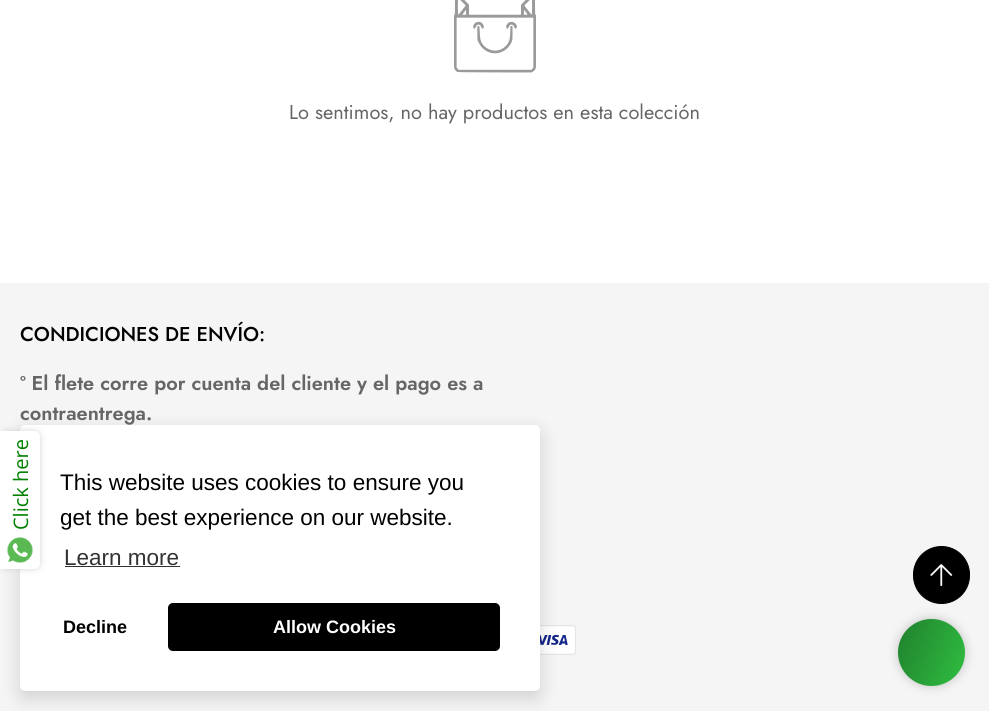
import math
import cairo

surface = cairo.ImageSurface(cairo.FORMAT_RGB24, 989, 711)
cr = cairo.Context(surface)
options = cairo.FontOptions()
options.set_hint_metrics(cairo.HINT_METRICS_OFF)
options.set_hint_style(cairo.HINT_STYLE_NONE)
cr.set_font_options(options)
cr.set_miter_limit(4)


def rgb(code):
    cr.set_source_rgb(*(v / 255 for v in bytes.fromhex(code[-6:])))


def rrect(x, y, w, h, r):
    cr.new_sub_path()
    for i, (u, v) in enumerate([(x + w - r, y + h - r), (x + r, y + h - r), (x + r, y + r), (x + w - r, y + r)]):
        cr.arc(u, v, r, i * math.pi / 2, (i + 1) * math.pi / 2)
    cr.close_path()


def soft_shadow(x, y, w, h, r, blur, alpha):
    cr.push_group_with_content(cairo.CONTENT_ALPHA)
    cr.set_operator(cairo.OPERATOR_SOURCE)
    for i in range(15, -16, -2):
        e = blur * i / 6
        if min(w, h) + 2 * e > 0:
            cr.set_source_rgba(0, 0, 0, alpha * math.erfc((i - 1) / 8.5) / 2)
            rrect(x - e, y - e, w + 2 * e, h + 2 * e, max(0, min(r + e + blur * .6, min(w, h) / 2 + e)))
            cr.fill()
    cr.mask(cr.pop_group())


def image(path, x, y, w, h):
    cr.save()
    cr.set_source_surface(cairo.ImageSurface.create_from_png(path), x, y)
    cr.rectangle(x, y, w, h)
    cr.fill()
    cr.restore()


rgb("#ffffff")
cr.paint()
image("img/1.png", 454, 0, 82, 73)
rgb("#f5f5f5")
cr.rectangle(0, 283, 989, 428)
cr.fill()
image("img/2.png", 540, 625, 36, 30)
rgb("#000000")
soft_shadow(20, 431, 520, 267, 5, 9.5, 0.15)
rgb("#ffffff")
rrect(20, 425, 520, 266, 5)
cr.fill()
rgb("#d3d3d3")
soft_shadow(0, 431, 40, 138, 6, 3, 1)
rgb("#ffffff")
cr.new_path()
cr.move_to(0, 431)
cr.line_to(34, 431)
cr.curve_to(37.5, 431, 40, 433.5, 40, 437)
cr.line_to(40, 563)
cr.curve_to(40, 566.5, 37.5, 569, 34, 569)
cr.line_to(0, 569)
cr.close_path()
cr.fill()
image("img/3.png", 7, 537, 26, 26)
rgb("#333333")
cr.rectangle(65, 566, 115, 1)
cr.fill()
rgb("#000000")
rrect(168, 603, 332, 48, 5)
cr.fill()
rrect(913.5, 546.5, 56, 57, 28)
cr.fill_preserve()
cr.set_line_width(1)
cr.stroke()
image("img/4.png", 930, 564, 23, 22)
rgb("#c2c2c2")
soft_shadow(898, 619, 67, 67, 33.5, 5, 1)
gradient = cairo.LinearGradient(891, 636, 972, 669)
gradient.add_color_stop_rgba(0, 0.125, 0.502, 0.173, 1)
gradient.add_color_stop_rgba(0, 0.125, 0.502, 0.173, 1)
gradient.add_color_stop_rgba(1, 0.188, 0.749, 0.259, 1)
cr.set_source(gradient)
cr.arc(931.5, 652.5, 33.5, 0, 2 * math.pi)
cr.fill()
cr.select_font_face("Jost")
cr.set_font_size(20)
rgb("#666666")
cr.move_to(289, 119)
cr.show_text("Lo sentimos, no hay productos en esta colección")
cr.select_font_face("Jost Medium")
rgb("#000000")
cr.move_to(20, 341)
cr.show_text("CONDICIONES DE ENVÍO:")
cr.select_font_face("Jost SemiBold")
rgb("#666666")
cr.move_to(20, 390)
cr.show_text("º El flete corre por cuenta del cliente y el pago es a")
cr.move_to(20, 420)
cr.show_text("contraentrega.")
cr.select_font_face("Open Sans")
rgb("#008000")
cr.save()
cr.translate(28, 530)
cr.rotate(-90 * math.pi / 180)
cr.move_to(0, 0)
cr.show_text("Click here")
cr.restore()
cr.select_font_face("Liberation Sans")
cr.set_font_size(22.5)
rgb("#000000")
cr.move_to(60, 490)
cr.show_text("This website uses cookies to ensure you")
cr.move_to(60, 525)
cr.show_text("get the best experience on our website.")
rgb("#333333")
cr.move_to(64, 565)
cr.show_text("Learn more")
cr.select_font_face("Liberation Sans", cairo.FONT_SLANT_NORMAL, cairo.FONT_WEIGHT_BOLD)
cr.set_font_size(18)
rgb("#000000")
cr.move_to(63, 633)
cr.show_text("Decline")
rgb("#ffffff")
cr.move_to(273, 633)
cr.show_text("Allow Cookies")
surface.write_to_png("page.png")
